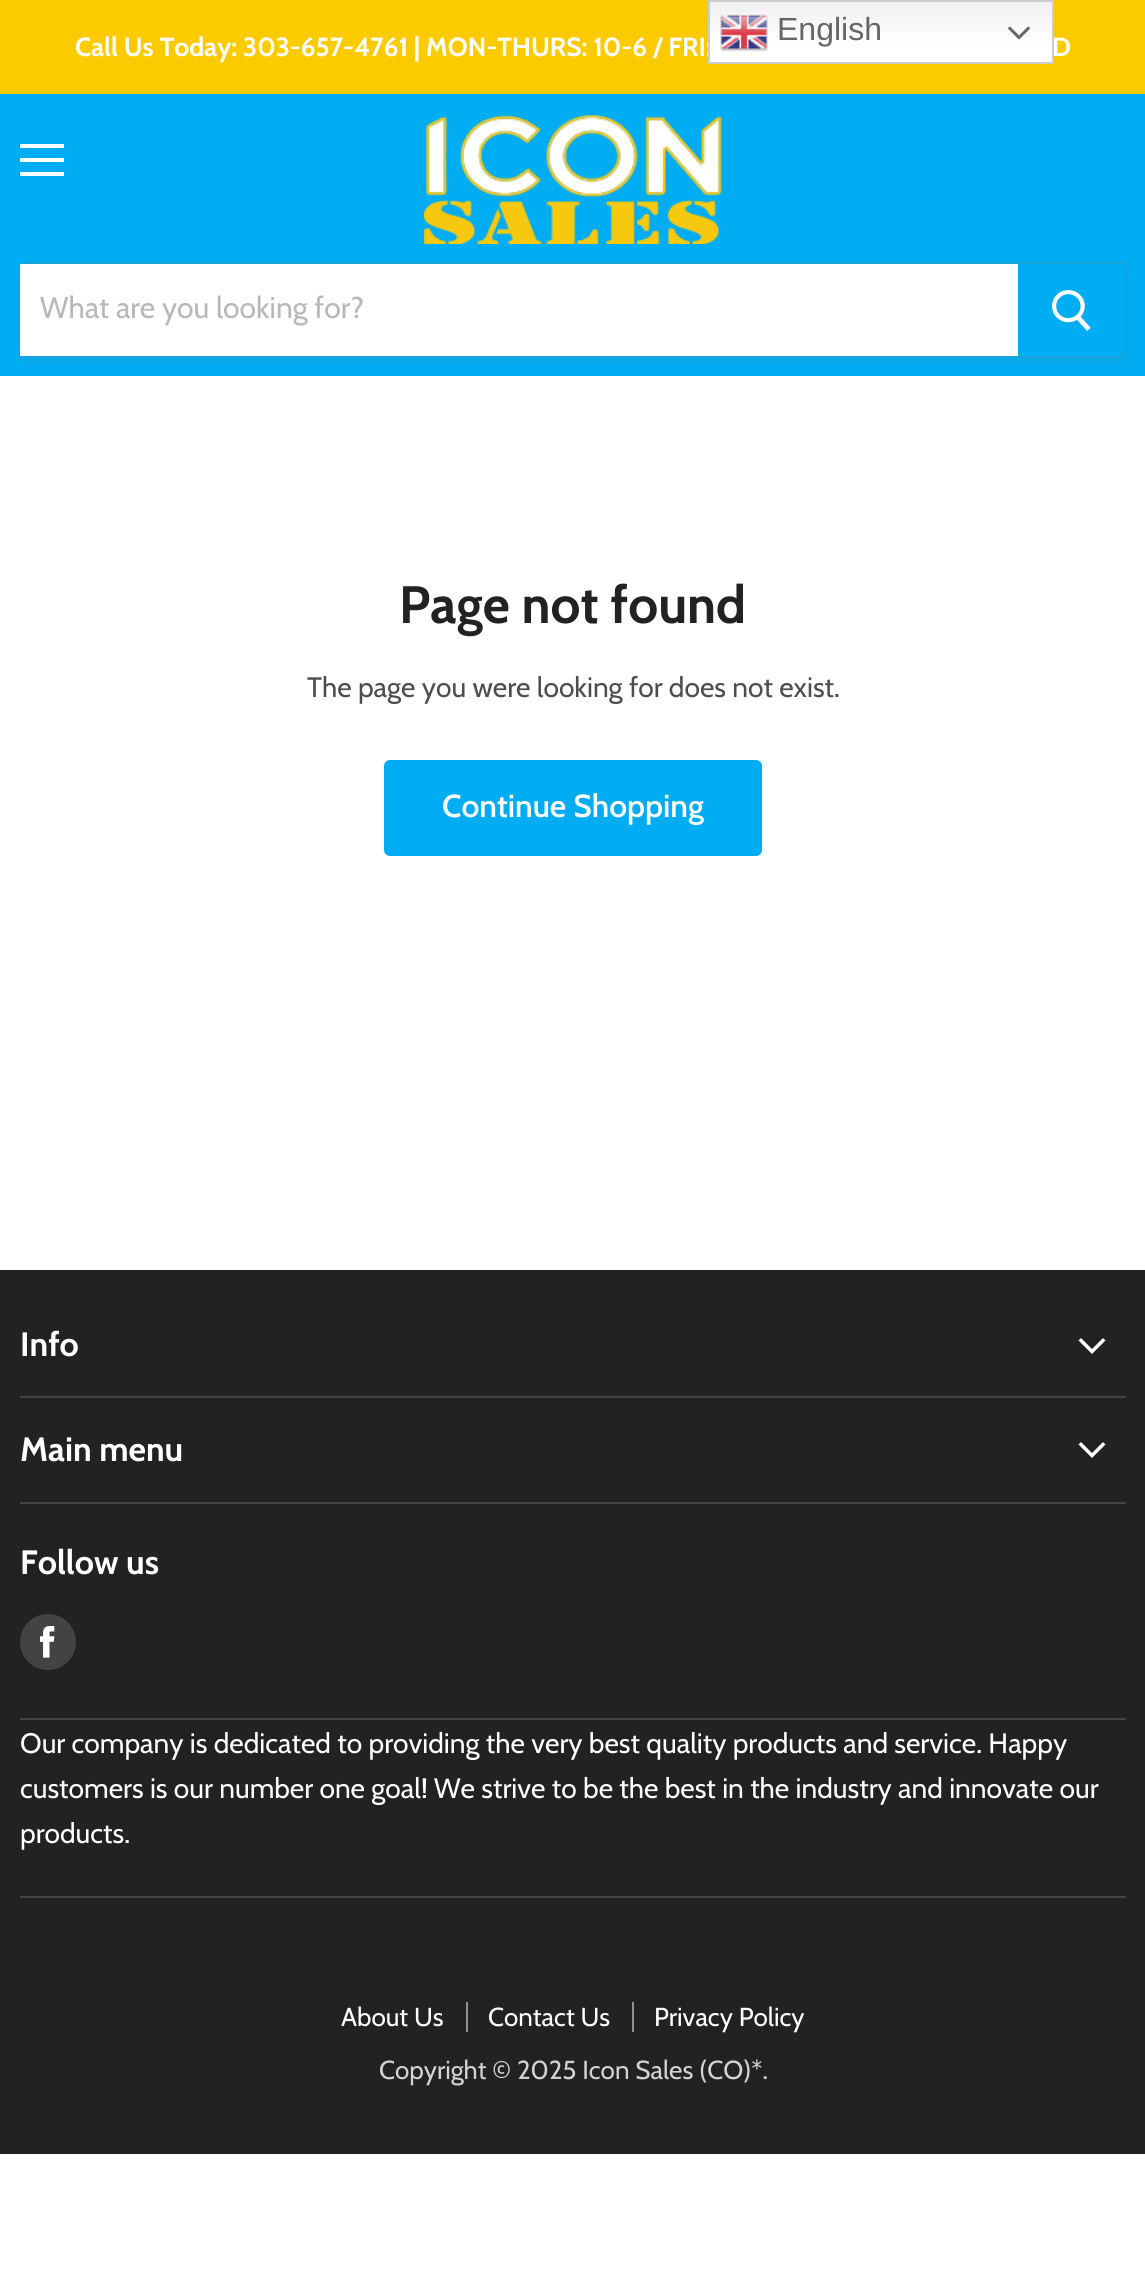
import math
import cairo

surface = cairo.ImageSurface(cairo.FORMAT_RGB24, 1145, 2272)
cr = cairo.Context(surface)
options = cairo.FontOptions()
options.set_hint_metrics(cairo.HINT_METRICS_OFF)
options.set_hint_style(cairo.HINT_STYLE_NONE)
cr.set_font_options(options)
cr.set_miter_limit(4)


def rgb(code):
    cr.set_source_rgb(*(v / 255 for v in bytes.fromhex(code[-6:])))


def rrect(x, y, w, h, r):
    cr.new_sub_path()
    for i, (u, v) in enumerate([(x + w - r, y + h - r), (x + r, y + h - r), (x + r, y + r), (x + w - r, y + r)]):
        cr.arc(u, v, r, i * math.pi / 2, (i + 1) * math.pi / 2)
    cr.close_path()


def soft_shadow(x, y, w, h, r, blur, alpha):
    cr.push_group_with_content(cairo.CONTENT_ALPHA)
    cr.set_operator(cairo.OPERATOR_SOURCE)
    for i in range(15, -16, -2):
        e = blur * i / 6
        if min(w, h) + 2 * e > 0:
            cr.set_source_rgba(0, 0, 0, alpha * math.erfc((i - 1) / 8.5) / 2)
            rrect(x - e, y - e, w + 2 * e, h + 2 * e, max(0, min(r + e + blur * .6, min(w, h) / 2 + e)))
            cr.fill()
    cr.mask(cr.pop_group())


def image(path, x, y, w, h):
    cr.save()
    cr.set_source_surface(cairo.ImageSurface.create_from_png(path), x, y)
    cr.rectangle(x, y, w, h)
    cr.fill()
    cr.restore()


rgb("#ffffff")
cr.paint()
rgb("#fbcb00")
cr.rectangle(0, 0, 1145, 94)
cr.fill()
gradient = cairo.LinearGradient(881, 0, 881, 64)
gradient.add_color_stop_rgba(0, 0.937, 0.937, 0.937, 1)
gradient.add_color_stop_rgba(0.7, 1, 1, 1, 1)
cr.set_source(gradient)
cr.rectangle(710, 2, 342, 60)
cr.fill()
for x, y, w, h, color in [
    (0, 94, 1145, 282, "#00acf2"),
    (20, 144, 44, 4, "#ffffff"),
    (20, 158, 44, 4, "#ffffff"),
    (20, 172, 44, 4, "#ffffff"),
]:
    rgb(color)
    cr.rectangle(x, y, w, h)
    cr.fill()
image("img/3.png", 424, 114, 298, 130)
cr.save()
cr.set_fill_rule(cairo.FILL_RULE_EVEN_ODD)
cr.new_path()
cr.move_to(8, 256)
cr.line_to(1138, 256)
cr.line_to(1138, 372)
cr.line_to(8, 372)
cr.close_path()
cr.move_to(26, 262)
cr.line_to(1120, 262)
cr.curve_to(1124.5, 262, 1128, 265.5, 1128, 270)
cr.line_to(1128, 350)
cr.curve_to(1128, 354.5, 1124.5, 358, 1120, 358)
cr.line_to(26, 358)
cr.curve_to(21.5, 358, 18, 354.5, 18, 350)
cr.line_to(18, 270)
cr.curve_to(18, 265.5, 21.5, 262, 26, 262)
cr.close_path()
cr.clip()
rgb("#808080")
soft_shadow(18, 266, 1110, 96, 8, 3, 0.11)
cr.restore()
rrect(19, 263, 1108, 94, 7)
cr.set_source_rgba(0.502, 0.502, 0.502, 0.2)
cr.stroke()
rgb("#ffffff")
cr.rectangle(20, 264, 998, 92)
cr.fill()
rgb("#00acf2")
cr.new_path()
cr.move_to(1019, 265)
cr.line_to(1120, 265)
cr.curve_to(1123, 265, 1125, 267, 1125, 270)
cr.line_to(1125, 350)
cr.curve_to(1125, 353, 1123, 355, 1120, 355)
cr.line_to(1019, 355)
cr.close_path()
cr.fill_preserve()
cr.stroke()
image("img/4.png", 1052, 290, 39, 41)
rrect(385, 761, 376, 94, 5)
cr.fill_preserve()
cr.stroke()
rgb("#222222")
cr.rectangle(0, 1270, 1145, 884)
cr.fill()
rgb("#434343")
cr.rectangle(20, 1396, 1106, 2)
cr.fill()
cr.new_path()
cr.move_to(1092, 1351.5)
cr.line_to(1103, 1340.5)
cr.move_to(1092, 1351.5)
cr.line_to(1081, 1340.5)
rgb("#ffffff")
cr.set_line_width(3.5)
cr.set_line_cap(cairo.LINE_CAP_SQUARE)
cr.stroke()
rgb("#434343")
cr.rectangle(20, 1502, 1106, 2)
cr.fill()
cr.new_path()
cr.move_to(1092, 1455.5)
cr.line_to(1103, 1444.5)
cr.move_to(1092, 1455.5)
cr.line_to(1081, 1444.5)
rgb("#ffffff")
cr.stroke()
rgb("#434343")
cr.rectangle(20, 1718, 1106, 2)
cr.fill()
cr.arc(48, 1642, 28, 0, 2 * math.pi)
cr.fill()
image("img/5.png", 40, 1626, 15, 32)
for x, y, w, h, color in [
    (20, 1896, 1106, 2, "#434343"),
    (466, 2002, 2, 30, "#919191"),
    (632, 2002, 2, 30, "#919191"),
]:
    rgb(color)
    cr.rectangle(x, y, w, h)
    cr.fill()
cr.select_font_face("Cabin", cairo.FONT_SLANT_NORMAL, cairo.FONT_WEIGHT_BOLD)
cr.set_font_size(26.25)
rgb("#ffffff")
cr.move_to(75, 56)
cr.show_text("Call Us Today: 303-657-4761 | MON-THURS: 10-6 / FRI:")
cr.rectangle(709, 1, 344, 62)
rgb("#cccccc")
cr.set_line_width(2)
cr.set_line_cap(cairo.LINE_CAP_BUTT)
cr.stroke()
image("img/2.png", 1008, 26, 22, 14)
image("img/1.png", 720, 14, 48, 38)
cr.select_font_face("Liberation Sans")
cr.set_font_size(32)
rgb("#666666")
cr.move_to(777, 40)
cr.show_text("English")
cr.select_font_face("Cabin", cairo.FONT_SLANT_NORMAL, cairo.FONT_WEIGHT_BOLD)
cr.set_font_size(26.25)
rgb("#ffffff")
cr.move_to(1052, 56)
cr.show_text("D")
cr.select_font_face("Cabin")
cr.set_font_size(30)
rgb("#b8b8b8")
cr.move_to(40, 318)
cr.show_text("What are you looking for?")
cr.select_font_face("Cabin", cairo.FONT_SLANT_NORMAL, cairo.FONT_WEIGHT_BOLD)
cr.set_font_size(52.5)
rgb("#222222")
cr.move_to(399, 623)
cr.show_text("Page not found")
cr.select_font_face("Cabin")
cr.set_font_size(28.1)
rgb("#4d4d4d")
cr.move_to(307, 697)
cr.show_text("The page you were looking for does not exist.")
cr.select_font_face("Cabin SemiBold")
cr.set_font_size(31.75)
rgb("#ffffff")
cr.move_to(442, 817)
cr.show_text("Continue Shopping")
cr.select_font_face("Cabin", cairo.FONT_SLANT_NORMAL, cairo.FONT_WEIGHT_BOLD)
cr.set_font_size(33.75)
for x, y, s in [
    (20, 1356, "Info"),
    (20, 1461, "Main menu"),
    (20, 1574, "Follow us"),
]:
    cr.move_to(x, y)
    cr.show_text(s)
cr.select_font_face("Cabin")
cr.set_font_size(28.1)
for x, y, s in [
    (20, 1753, "Our company is dedicated to providing the very best quality products and service. Happy"),
    (20, 1798, "customers is our number one goal! We strive to be the best in the industry and innovate our"),
    (20, 1843, "products."),
]:
    cr.move_to(x, y)
    cr.show_text(s)
cr.set_font_size(26)
for x, y, s in [
    (341, 2026, "About Us"),
    (488, 2026, "Contact Us"),
    (654, 2026, "Privacy Policy"),
]:
    cr.move_to(x, y)
    cr.show_text(s)
rgb("#d3d3d3")
cr.move_to(379, 2079)
cr.show_text("Copyright © 2025 Icon Sales (CO)*.")
surface.write_to_png("page.png")
